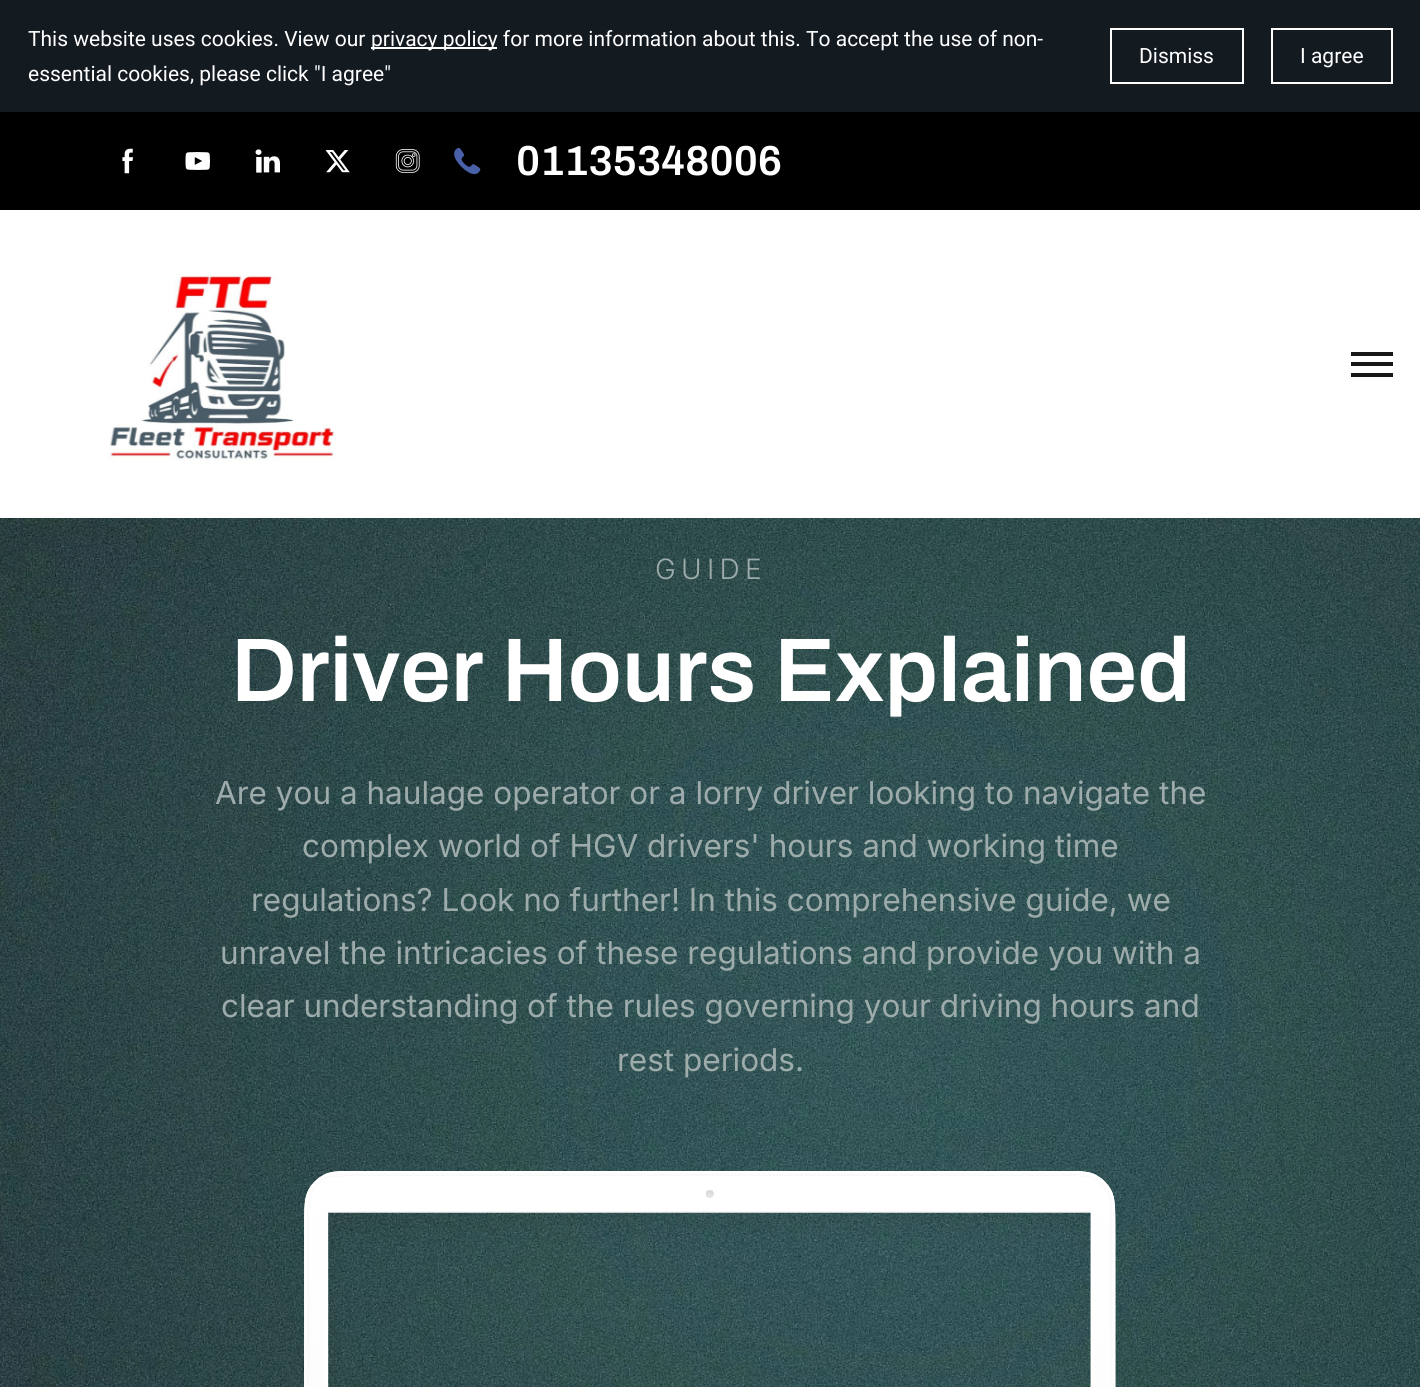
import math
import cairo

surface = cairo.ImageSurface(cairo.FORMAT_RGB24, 1420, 1387)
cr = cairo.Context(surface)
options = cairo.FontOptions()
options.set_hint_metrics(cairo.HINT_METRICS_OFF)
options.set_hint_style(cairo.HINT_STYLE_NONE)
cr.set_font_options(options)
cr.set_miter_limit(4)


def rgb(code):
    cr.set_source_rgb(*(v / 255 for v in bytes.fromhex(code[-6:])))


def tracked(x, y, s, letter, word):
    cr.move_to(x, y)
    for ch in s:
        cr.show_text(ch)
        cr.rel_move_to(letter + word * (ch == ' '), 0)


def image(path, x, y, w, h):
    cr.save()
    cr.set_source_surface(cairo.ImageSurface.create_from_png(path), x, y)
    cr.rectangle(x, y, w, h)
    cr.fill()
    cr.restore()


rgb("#ffffff")
cr.paint()
rgb("#131a20")
cr.rectangle(0, 0, 1420, 112)
cr.fill()
rgb("#ffffff")
cr.rectangle(371, 47, 126, 2)
cr.fill()
cr.rectangle(1111, 29, 132, 54)
cr.stroke()
cr.rectangle(1272, 29, 120, 54)
cr.stroke()
rgb("#000000")
cr.rectangle(0, 112, 1420, 98)
cr.fill()
image("img/1.png", 122, 148, 12, 26)
image("img/2.png", 185, 152, 25, 18)
image("img/3.png", 255, 149, 25, 24)
image("img/4.png", 325, 150, 25, 23)
image("img/5.png", 395, 149, 25, 24)
image("img/6.png", 454, 147, 27, 28)
image("img/7.png", 107, 274, 229, 187)
for x, y, w, h, color in [
    (1351, 362, 42, 4, "#151719"),
    (1351, 352, 42, 4, "#151719"),
    (1351, 373, 42, 4, "#151719"),
]:
    rgb(color)
    cr.rectangle(x, y, w, h)
    cr.fill()
image("img/8.png", 0, 518, 1420, 869)
image("img/9.png", 304, 1171, 812, 216)
cr.select_font_face("Roboto")
cr.set_font_size(21)
rgb("#ffffff")
for x, y, s in [
    (28, 46, "This website uses cookies. View our"),
    (371, 46, "privacy policy for more information about this. To accept the use of non-"),
    (28, 81, "essential cookies, please click \"I agree\""),
    (1139, 63, "Dismiss"),
    (1300, 63, "I agree"),
]:
    cr.move_to(x, y)
    cr.show_text(s)
cr.select_font_face("Archivo SemiBold")
cr.set_font_size(42)
cr.move_to(516, 175)
cr.show_text("01135348006")
cr.select_font_face("Inter Light")
cr.set_font_size(28)
rgb("#9dabab")
tracked(655, 579, "GUIDE", 5.25, 0)
cr.select_font_face("Archivo SemiBold")
cr.set_font_size(90.4)
rgb("#ffffff")
cr.move_to(231, 701)
cr.show_text("Driver Hours Explained")
cr.select_font_face("Inter")
cr.set_font_size(31.5)
rgb("#9dabab")
for x, y, s in [
    (215, 804, "Are you a haulage operator or a lorry driver looking to navigate the"),
    (302, 857, "complex world of HGV drivers' hours and working time"),
    (251, 911, "regulations? Look no further! In this comprehensive guide, we"),
    (220, 964, "unravel the intricacies of these regulations and provide you with a"),
    (221, 1017, "clear understanding of the rules governing your driving hours and"),
    (617, 1071, "rest periods."),
]:
    cr.move_to(x, y)
    cr.show_text(s)
surface.write_to_png("page.png")
